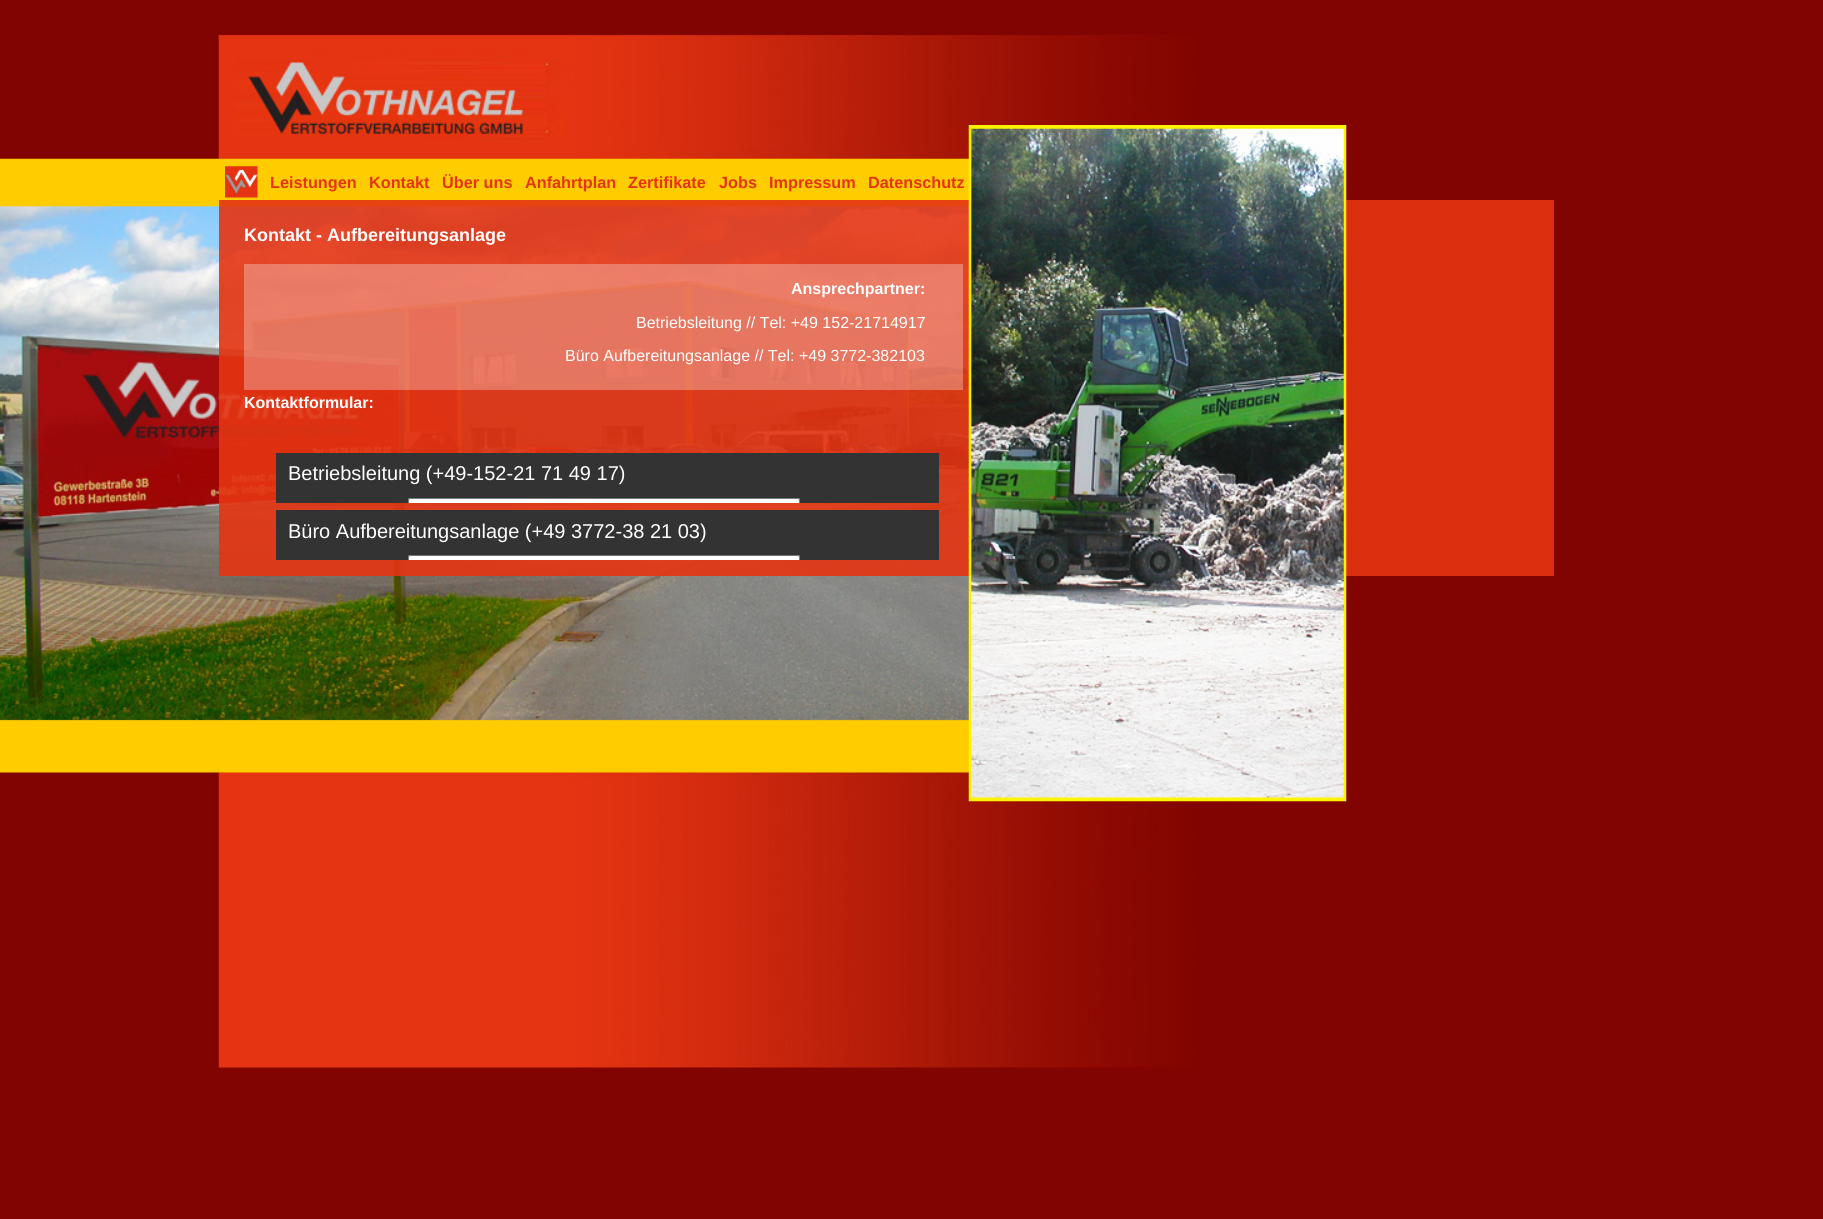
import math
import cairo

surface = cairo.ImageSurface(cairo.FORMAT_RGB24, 1823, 1219)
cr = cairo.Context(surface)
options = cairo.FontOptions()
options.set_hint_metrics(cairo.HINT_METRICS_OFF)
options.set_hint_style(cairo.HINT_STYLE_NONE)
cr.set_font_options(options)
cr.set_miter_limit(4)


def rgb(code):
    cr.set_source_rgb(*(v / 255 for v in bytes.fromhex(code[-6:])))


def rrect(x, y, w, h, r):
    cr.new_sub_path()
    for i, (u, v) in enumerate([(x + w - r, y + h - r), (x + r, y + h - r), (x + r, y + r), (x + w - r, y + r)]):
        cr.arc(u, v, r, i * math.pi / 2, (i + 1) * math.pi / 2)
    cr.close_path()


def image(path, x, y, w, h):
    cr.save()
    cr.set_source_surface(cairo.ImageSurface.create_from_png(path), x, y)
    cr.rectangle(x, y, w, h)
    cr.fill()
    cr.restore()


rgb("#810400")
cr.paint()
image("img/1.png", 0, 30, 1335, 1038)
image("img/2.png", 225, 166, 33, 32)
cr.set_source_rgba(0.898, 0.204, 0.071, 0.9)
cr.rectangle(219, 200, 1335, 376)
cr.fill()
cr.set_source_rgba(1, 1, 1, 0.3)
cr.rectangle(244, 264, 719, 126)
cr.fill()
rgb("#333333")
cr.rectangle(276, 453, 663, 50)
cr.fill()
rgb("#ffffff")
cr.new_path()
cr.move_to(410.5, 498)
cr.line_to(797.5, 498)
cr.curve_to(799, 498, 800, 499, 800, 500.5)
cr.line_to(800, 503)
cr.line_to(408, 503)
cr.line_to(408, 500.5)
cr.curve_to(408, 499, 409, 498, 410.5, 498)
cr.close_path()
cr.fill()
cr.save()
cr.rectangle(276, 453, 663, 50)
cr.clip()
rrect(408.5, 498.5, 391, 29, 2)
rgb("#767676")
cr.set_line_width(1)
cr.stroke()
cr.restore()
rgb("#333333")
cr.rectangle(276, 510, 663, 50)
cr.fill()
rgb("#ffffff")
cr.new_path()
cr.move_to(410.5, 555)
cr.line_to(797.5, 555)
cr.curve_to(799, 555, 800, 556, 800, 557.5)
cr.line_to(800, 560)
cr.line_to(408, 560)
cr.line_to(408, 557.5)
cr.curve_to(408, 556, 409, 555, 410.5, 555)
cr.close_path()
cr.fill()
cr.save()
cr.rectangle(276, 510, 663, 50)
cr.clip()
rrect(408.5, 555.5, 391, 29, 2)
rgb("#767676")
cr.set_line_width(1)
cr.stroke()
cr.restore()
image("img/3.png", 968, 125, 379, 677)
cr.select_font_face("Liberation Sans", cairo.FONT_SLANT_NORMAL, cairo.FONT_WEIGHT_BOLD)
cr.set_font_size(16.25)
rgb("#e53412")
for x, y, s in [
    (270, 188, "Leistungen"),
    (369, 188, "Kontakt"),
    (442, 188, "Über uns"),
    (525, 188, "Anfahrtplan"),
    (628, 188, "Zertifikate"),
    (719, 188, "Jobs"),
    (769, 188, "Impressum"),
    (868, 188, "Datenschutz"),
]:
    cr.move_to(x, y)
    cr.show_text(s)
cr.set_font_size(18)
rgb("#ffffff")
cr.move_to(244, 241)
cr.show_text("Kontakt - Aufbereitungsanlage")
cr.set_font_size(16)
cr.move_to(791, 294)
cr.show_text("Ansprechpartner:")
cr.select_font_face("Liberation Sans")
cr.move_to(636, 328)
cr.show_text("Betriebsleitung // Tel: +49 152-21714917")
cr.move_to(565, 361)
cr.show_text("Büro Aufbereitungsanlage // Tel: +49 3772-382103")
cr.select_font_face("Liberation Sans", cairo.FONT_SLANT_NORMAL, cairo.FONT_WEIGHT_BOLD)
cr.move_to(244, 408)
cr.show_text("Kontaktformular:")
cr.select_font_face("Liberation Sans")
cr.set_font_size(20)
cr.move_to(288, 480)
cr.show_text("Betriebsleitung (+49-152-21 71 49 17)")
cr.move_to(288, 538)
cr.show_text("Büro Aufbereitungsanlage (+49 3772-38 21 03)")
surface.write_to_png("page.png")
